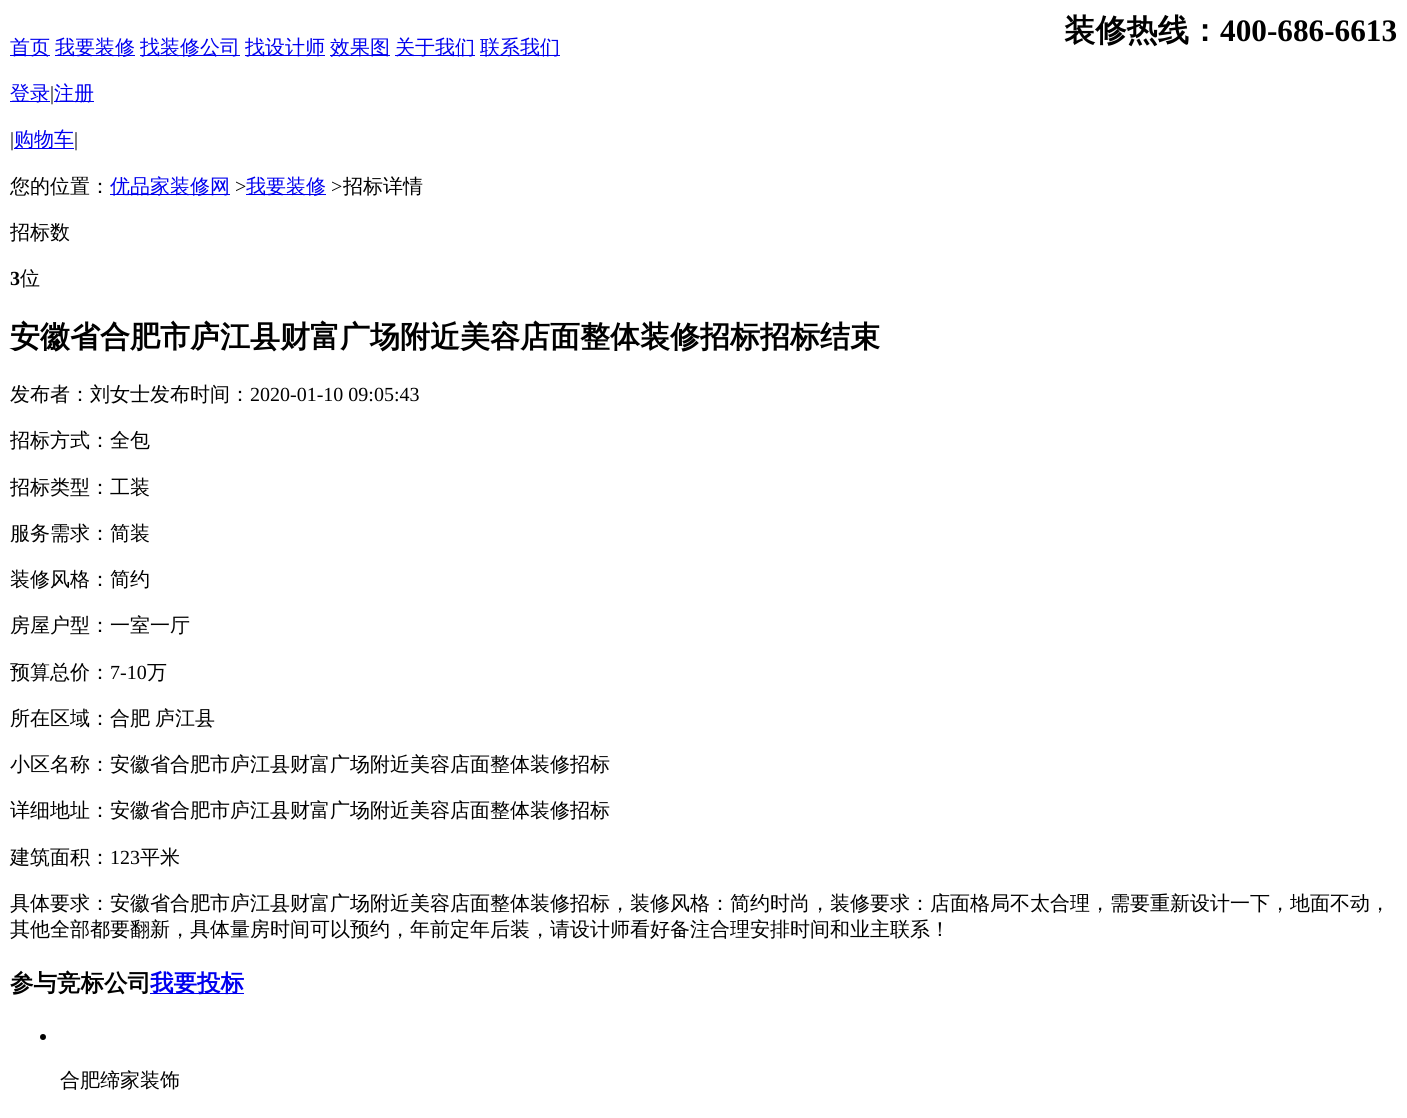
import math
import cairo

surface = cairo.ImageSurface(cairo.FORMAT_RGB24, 1407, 1118)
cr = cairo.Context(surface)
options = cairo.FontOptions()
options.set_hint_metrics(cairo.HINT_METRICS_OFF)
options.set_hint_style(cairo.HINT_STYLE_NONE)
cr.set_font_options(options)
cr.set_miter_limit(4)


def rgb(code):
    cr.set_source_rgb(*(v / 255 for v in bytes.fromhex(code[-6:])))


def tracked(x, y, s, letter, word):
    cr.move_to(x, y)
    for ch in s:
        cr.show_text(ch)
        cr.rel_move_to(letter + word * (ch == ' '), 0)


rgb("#ffffff")
cr.paint()
for x, y, w, h, color in [
    (10, 55, 40, 1, "#0000ee"),
    (55, 55, 80, 1, "#0000ee"),
    (140, 55, 100, 1, "#0000ee"),
    (245, 55, 80, 1, "#0000ee"),
    (330, 55, 60, 1, "#0000ee"),
    (395, 55, 80, 1, "#0000ee"),
    (480, 55, 80, 1, "#0000ee"),
    (10, 101, 40, 1, "#0000ee"),
    (54, 101, 40, 1, "#0000ee"),
    (14, 148, 60, 1, "#0000ee"),
    (110, 194, 120, 1, "#0000ee"),
    (246, 194, 80, 1, "#0000ee"),
    (150, 993, 94, 1, "#0000ee"),
]:
    rgb(color)
    cr.rectangle(x, y, w, h)
    cr.fill()
rgb("#000000")
cr.arc(43, 1037, 3, 0, 2 * math.pi)
cr.fill()
cr.select_font_face("WenQuanYi Zen Hei Medium")
cr.set_font_size(20)
rgb("#0000ee")
for x, y, s in [
    (10, 54, "首页"),
    (55, 54, "我要装修"),
    (140, 54, "找装修公司"),
    (245, 54, "找设计师"),
    (330, 54, "效果图"),
    (395, 54, "关于我们"),
    (480, 54, "联系我们"),
]:
    cr.move_to(x, y)
    cr.show_text(s)
cr.select_font_face("WenQuanYi Zen Hei", cairo.FONT_SLANT_NORMAL, cairo.FONT_WEIGHT_BOLD)
cr.set_font_size(31.25)
rgb("#000000")
cr.move_to(1064, 41)
cr.show_text("装修热线：")
cr.select_font_face("Liberation Serif", cairo.FONT_SLANT_NORMAL, cairo.FONT_WEIGHT_BOLD)
cr.move_to(1220, 41)
cr.show_text("400-686-6613")
cr.select_font_face("WenQuanYi Zen Hei Medium")
cr.set_font_size(20)
rgb("#0000ee")
cr.move_to(10, 100)
cr.show_text("登录")
cr.select_font_face("Liberation Serif")
rgb("#000000")
cr.move_to(50, 100)
cr.show_text("|")
cr.select_font_face("WenQuanYi Zen Hei Medium")
rgb("#0000ee")
cr.move_to(54, 100)
cr.show_text("注册")
cr.select_font_face("Liberation Serif")
rgb("#000000")
cr.move_to(10, 146)
cr.show_text("|")
cr.select_font_face("WenQuanYi Zen Hei Medium")
rgb("#0000ee")
cr.move_to(14, 146)
cr.show_text("购物车")
cr.select_font_face("Liberation Serif")
rgb("#000000")
cr.move_to(74, 146)
cr.show_text("|")
cr.select_font_face("WenQuanYi Zen Hei Medium")
cr.move_to(10, 193)
cr.show_text("您的位置：")
rgb("#0000ee")
cr.move_to(110, 193)
cr.show_text("优品家装修网")
cr.select_font_face("Liberation Serif")
rgb("#000000")
cr.move_to(235, 193)
cr.show_text(">")
cr.select_font_face("WenQuanYi Zen Hei Medium")
rgb("#0000ee")
cr.move_to(246, 193)
cr.show_text("我要装修")
cr.select_font_face("Liberation Serif")
rgb("#000000")
cr.move_to(331, 193)
cr.show_text(">")
cr.select_font_face("WenQuanYi Zen Hei Medium")
cr.move_to(343, 193)
cr.show_text("招标详情")
cr.move_to(10, 239)
cr.show_text("招标数")
cr.select_font_face("Liberation Serif", cairo.FONT_SLANT_NORMAL, cairo.FONT_WEIGHT_BOLD)
cr.move_to(10, 285)
cr.show_text("3")
cr.select_font_face("WenQuanYi Zen Hei Medium")
cr.move_to(20, 285)
cr.show_text("位")
cr.select_font_face("WenQuanYi Zen Hei", cairo.FONT_SLANT_NORMAL, cairo.FONT_WEIGHT_BOLD)
cr.set_font_size(30)
cr.move_to(10, 347)
cr.show_text("安徽省合肥市庐江县财富广场附近美容店面整体装修招标招标结束")
cr.select_font_face("WenQuanYi Zen Hei Medium")
cr.set_font_size(20)
cr.move_to(10, 401)
cr.show_text("发布者：刘女士发布时间：")
cr.select_font_face("Liberation Serif")
cr.move_to(250, 401)
cr.show_text("2020-01-10 09:05:43")
cr.select_font_face("WenQuanYi Zen Hei Medium")
for x, y, s in [
    (10, 447, "招标方式：全包"),
    (10, 494, "招标类型：工装"),
    (10, 540, "服务需求：简装"),
    (10, 586, "装修风格：简约"),
    (10, 632, "房屋户型：一室一厅"),
    (10, 679, "预算总价："),
]:
    cr.move_to(x, y)
    cr.show_text(s)
cr.select_font_face("Liberation Serif")
cr.move_to(110, 679)
cr.show_text("7-10")
cr.select_font_face("WenQuanYi Zen Hei Medium")
cr.move_to(147, 679)
cr.show_text("万")
tracked(10, 725, "所在区域：合肥 庐江县", 0, -1)
for x, y, s in [
    (10, 771, "小区名称：安徽省合肥市庐江县财富广场附近美容店面整体装修招标"),
    (10, 817, "详细地址：安徽省合肥市庐江县财富广场附近美容店面整体装修招标"),
    (10, 864, "建筑面积："),
]:
    cr.move_to(x, y)
    cr.show_text(s)
cr.select_font_face("Liberation Serif")
cr.move_to(110, 864)
cr.show_text("123")
cr.select_font_face("WenQuanYi Zen Hei Medium")
for x, y, s in [
    (140, 864, "平米"),
    (10, 910, "具体要求：安徽省合肥市庐江县财富广场附近美容店面整体装修招标，装修风格：简约时尚，装修要求：店面格局不太合理，需要重新设计一下，地面不动，"),
    (10, 936, "其他全部都要翻新，具体量房时间可以预约，年前定年后装，请设计师看好备注合理安排时间和业主联系！"),
]:
    cr.move_to(x, y)
    cr.show_text(s)
cr.select_font_face("WenQuanYi Zen Hei", cairo.FONT_SLANT_NORMAL, cairo.FONT_WEIGHT_BOLD)
cr.set_font_size(23.5)
cr.move_to(10, 991)
cr.show_text("参与竞标公司")
rgb("#0000ee")
cr.move_to(150, 991)
cr.show_text("我要投标")
cr.select_font_face("WenQuanYi Zen Hei Medium")
cr.set_font_size(20)
rgb("#000000")
cr.move_to(60, 1087)
cr.show_text("合肥缔家装饰")
surface.write_to_png("page.png")
